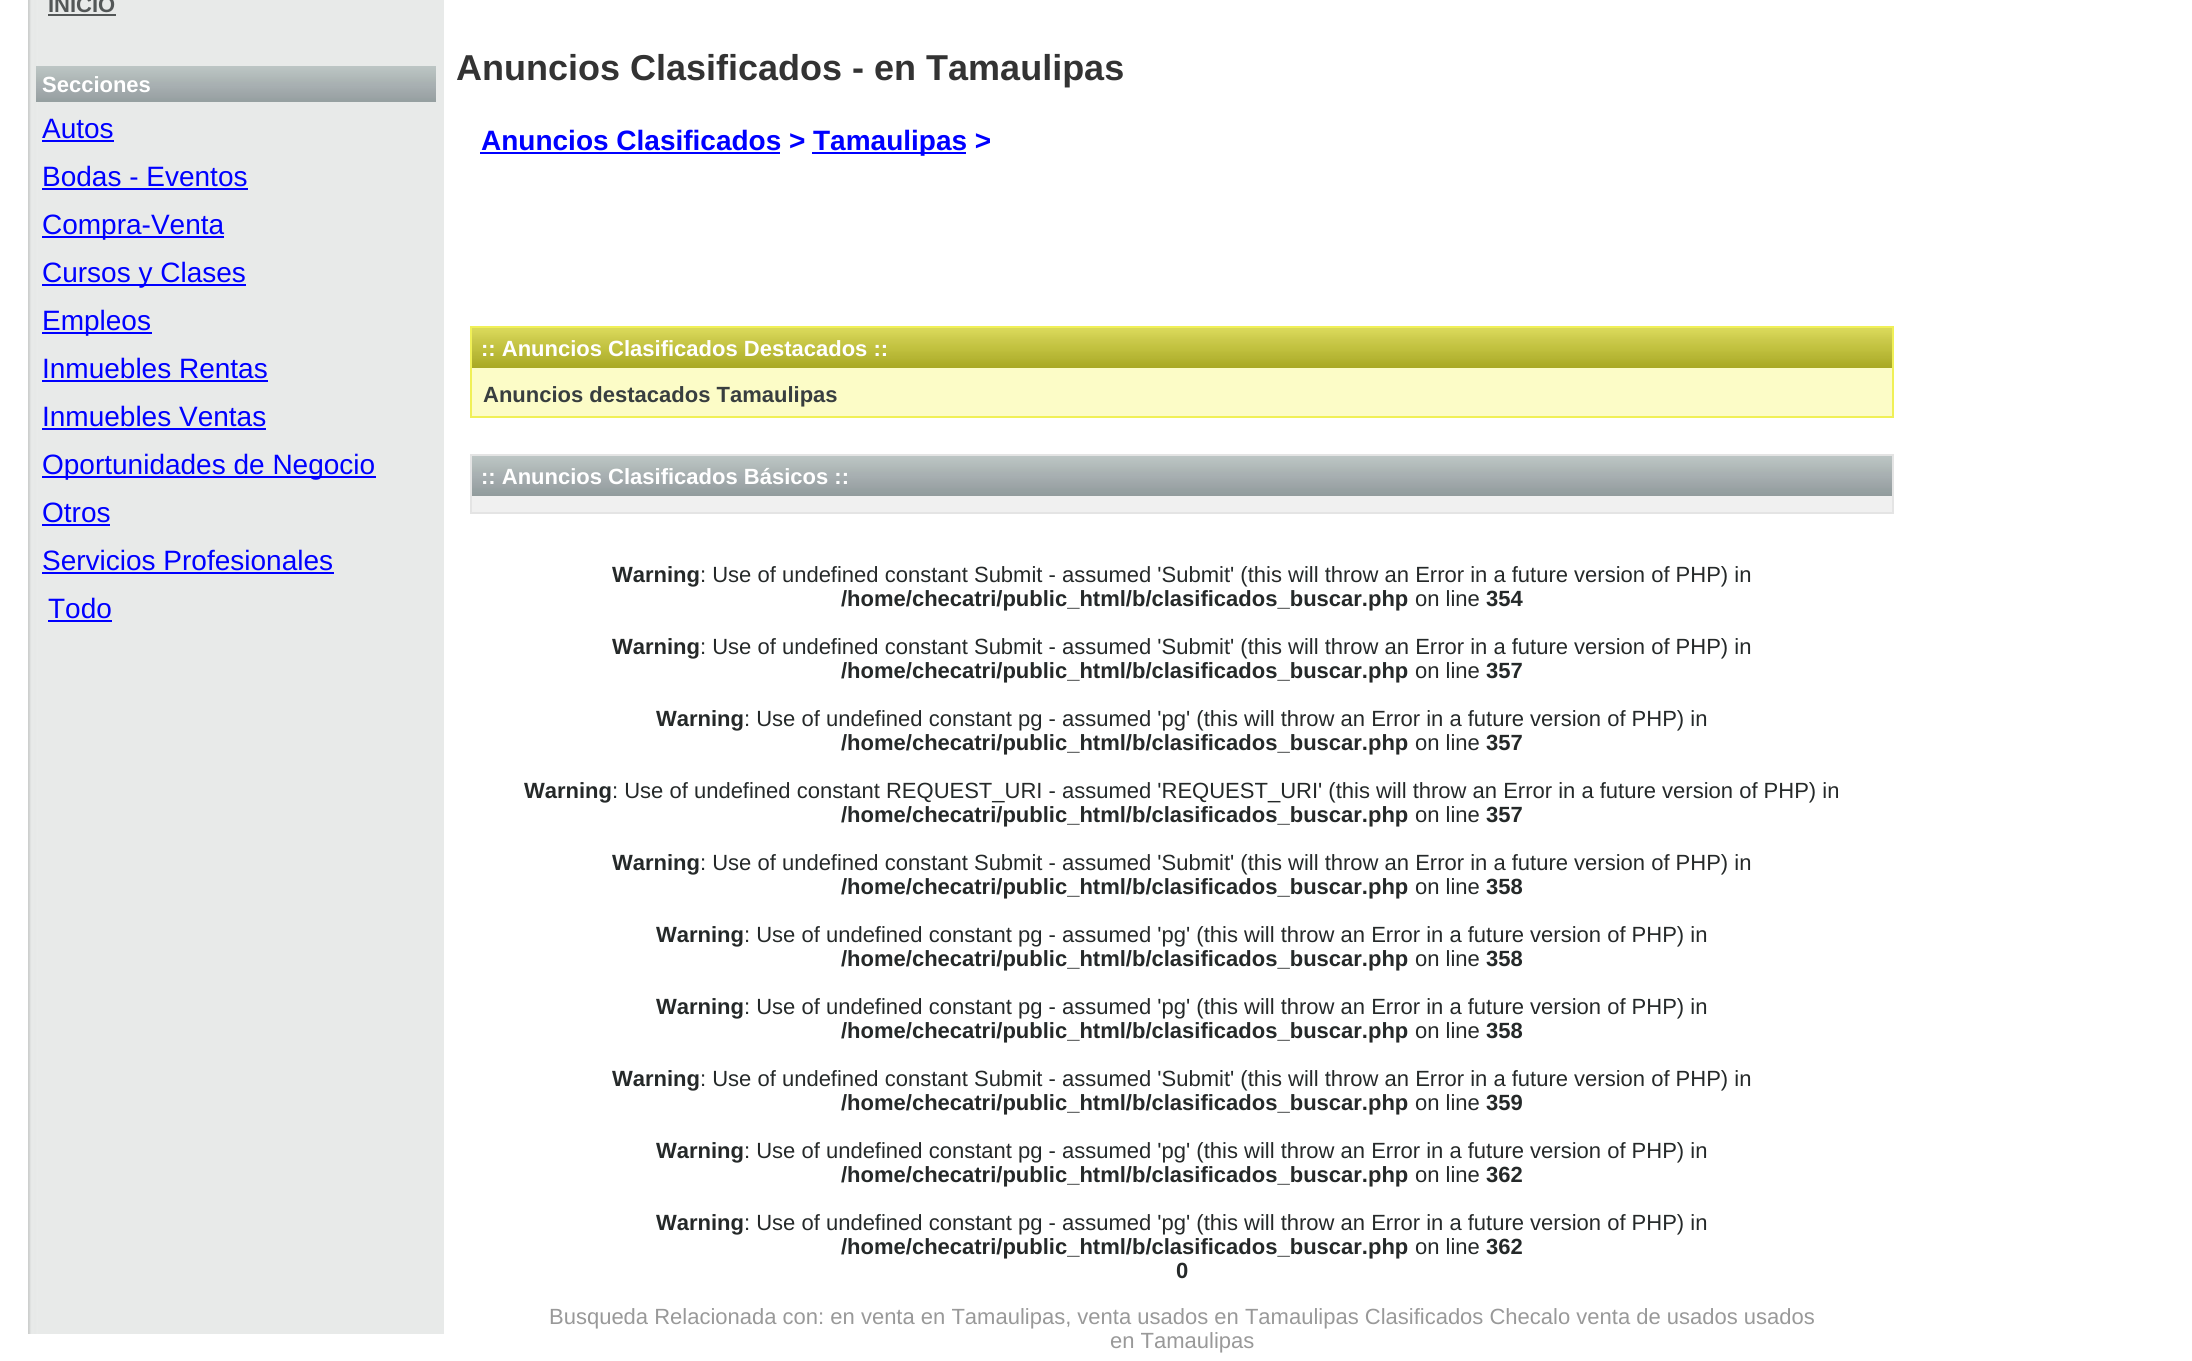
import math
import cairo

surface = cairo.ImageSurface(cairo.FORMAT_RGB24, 2192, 1361)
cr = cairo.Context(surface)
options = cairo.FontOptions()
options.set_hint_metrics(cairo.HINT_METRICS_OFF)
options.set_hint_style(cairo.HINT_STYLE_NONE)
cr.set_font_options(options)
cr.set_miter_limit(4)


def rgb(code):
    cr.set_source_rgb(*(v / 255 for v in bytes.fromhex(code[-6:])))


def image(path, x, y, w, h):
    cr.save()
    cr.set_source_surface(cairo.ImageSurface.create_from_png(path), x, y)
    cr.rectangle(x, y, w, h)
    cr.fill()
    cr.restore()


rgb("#ffffff")
cr.paint()
image("img/1.png", 28, 0, 416, 1334)
rgb("#535757")
cr.rectangle(48, 14, 68, 2)
cr.fill()
image("img/2.png", 36, 66, 400, 36)
for x, y, w, h, color in [
    (42, 140, 72, 2, "#0000ff"),
    (42, 188, 206, 2, "#0000ff"),
    (42, 236, 182, 2, "#0000ff"),
    (42, 284, 204, 2, "#0000ff"),
    (42, 332, 110, 2, "#0000ff"),
    (42, 380, 226, 2, "#0000ff"),
    (42, 428, 224, 2, "#0000ff"),
    (42, 476, 334, 2, "#0000ff"),
    (42, 524, 68, 2, "#0000ff"),
    (42, 572, 292, 2, "#0000ff"),
    (48, 620, 64, 2, "#0000ff"),
    (480, 152, 300, 2, "#0000ff"),
    (812, 152, 154, 2, "#0000ff"),
    (472, 368, 1420, 48, "#fcfcc7"),
]:
    rgb(color)
    cr.rectangle(x, y, w, h)
    cr.fill()
cr.rectangle(471, 327, 1422, 90)
rgb("#f0f057")
cr.stroke()
image("img/3.png", 472, 328, 1420, 40)
rgb("#f0f0f0")
cr.rectangle(472, 496, 1420, 16)
cr.fill()
cr.rectangle(471, 455, 1422, 58)
rgb("#e4e4e4")
cr.stroke()
image("img/4.png", 472, 456, 1420, 40)
cr.select_font_face("Liberation Sans", cairo.FONT_SLANT_NORMAL, cairo.FONT_WEIGHT_BOLD)
cr.set_font_size(22)
rgb("#535757")
cr.move_to(48, 12)
cr.show_text("INICIO")
rgb("#ffffff")
cr.move_to(42, 92)
cr.show_text("Secciones")
cr.select_font_face("Liberation Sans")
cr.set_font_size(28)
rgb("#0000ff")
for x, y, s in [
    (42, 138, "Autos"),
    (42, 186, "Bodas - Eventos"),
    (42, 234, "Compra-Venta"),
    (42, 282, "Cursos y Clases"),
    (42, 330, "Empleos"),
    (42, 378, "Inmuebles Rentas"),
    (42, 426, "Inmuebles Ventas"),
    (42, 474, "Oportunidades de Negocio"),
    (42, 522, "Otros"),
    (42, 570, "Servicios Profesionales"),
    (48, 618, "Todo"),
]:
    cr.move_to(x, y)
    cr.show_text(s)
cr.select_font_face("Liberation Sans", cairo.FONT_SLANT_NORMAL, cairo.FONT_WEIGHT_BOLD)
cr.set_font_size(36)
rgb("#333333")
cr.move_to(456, 80)
cr.show_text("Anuncios Clasificados - en Tamaulipas")
cr.set_font_size(28)
rgb("#0000ff")
cr.move_to(481, 150)
cr.show_text("Anuncios Clasificados >")
cr.move_to(813, 150)
cr.show_text("Tamaulipas >")
cr.set_font_size(22)
rgb("#ffffff")
cr.move_to(481, 356)
cr.show_text(":: Anuncios Clasificados Destacados ::")
rgb("#383e3f")
cr.move_to(483, 402)
cr.show_text("Anuncios destacados Tamaulipas")
rgb("#ffffff")
cr.move_to(481, 484)
cr.show_text(":: Anuncios Clasificados Básicos ::")
rgb("#252929")
cr.move_to(612, 582)
cr.show_text("Warning")
cr.select_font_face("Liberation Sans")
cr.move_to(700, 582)
cr.show_text(": Use of undefined constant Submit - assumed 'Submit' (this will throw an Error in a future version of PHP) in")
cr.select_font_face("Liberation Sans", cairo.FONT_SLANT_NORMAL, cairo.FONT_WEIGHT_BOLD)
cr.move_to(841, 606)
cr.show_text("/home/checatri/public_html/b/clasificados_buscar.php")
cr.select_font_face("Liberation Sans")
cr.move_to(1415, 606)
cr.show_text("on line")
cr.select_font_face("Liberation Sans", cairo.FONT_SLANT_NORMAL, cairo.FONT_WEIGHT_BOLD)
cr.move_to(1486, 606)
cr.show_text("354")
cr.move_to(612, 654)
cr.show_text("Warning")
cr.select_font_face("Liberation Sans")
cr.move_to(700, 654)
cr.show_text(": Use of undefined constant Submit - assumed 'Submit' (this will throw an Error in a future version of PHP) in")
cr.select_font_face("Liberation Sans", cairo.FONT_SLANT_NORMAL, cairo.FONT_WEIGHT_BOLD)
cr.move_to(841, 678)
cr.show_text("/home/checatri/public_html/b/clasificados_buscar.php")
cr.select_font_face("Liberation Sans")
cr.move_to(1415, 678)
cr.show_text("on line")
cr.select_font_face("Liberation Sans", cairo.FONT_SLANT_NORMAL, cairo.FONT_WEIGHT_BOLD)
cr.move_to(1486, 678)
cr.show_text("357")
cr.move_to(656, 726)
cr.show_text("Warning")
cr.select_font_face("Liberation Sans")
cr.move_to(744, 726)
cr.show_text(": Use of undefined constant pg - assumed 'pg' (this will throw an Error in a future version of PHP) in")
cr.select_font_face("Liberation Sans", cairo.FONT_SLANT_NORMAL, cairo.FONT_WEIGHT_BOLD)
cr.move_to(841, 750)
cr.show_text("/home/checatri/public_html/b/clasificados_buscar.php")
cr.select_font_face("Liberation Sans")
cr.move_to(1415, 750)
cr.show_text("on line")
cr.select_font_face("Liberation Sans", cairo.FONT_SLANT_NORMAL, cairo.FONT_WEIGHT_BOLD)
cr.move_to(1486, 750)
cr.show_text("357")
cr.move_to(524, 798)
cr.show_text("Warning")
cr.select_font_face("Liberation Sans")
cr.move_to(612, 798)
cr.show_text(": Use of undefined constant REQUEST_URI - assumed 'REQUEST_URI' (this will throw an Error in a future version of PHP) in")
cr.select_font_face("Liberation Sans", cairo.FONT_SLANT_NORMAL, cairo.FONT_WEIGHT_BOLD)
cr.move_to(841, 822)
cr.show_text("/home/checatri/public_html/b/clasificados_buscar.php")
cr.select_font_face("Liberation Sans")
cr.move_to(1415, 822)
cr.show_text("on line")
cr.select_font_face("Liberation Sans", cairo.FONT_SLANT_NORMAL, cairo.FONT_WEIGHT_BOLD)
cr.move_to(1486, 822)
cr.show_text("357")
cr.move_to(612, 870)
cr.show_text("Warning")
cr.select_font_face("Liberation Sans")
cr.move_to(700, 870)
cr.show_text(": Use of undefined constant Submit - assumed 'Submit' (this will throw an Error in a future version of PHP) in")
cr.select_font_face("Liberation Sans", cairo.FONT_SLANT_NORMAL, cairo.FONT_WEIGHT_BOLD)
cr.move_to(841, 894)
cr.show_text("/home/checatri/public_html/b/clasificados_buscar.php")
cr.select_font_face("Liberation Sans")
cr.move_to(1415, 894)
cr.show_text("on line")
cr.select_font_face("Liberation Sans", cairo.FONT_SLANT_NORMAL, cairo.FONT_WEIGHT_BOLD)
cr.move_to(1486, 894)
cr.show_text("358")
cr.move_to(656, 942)
cr.show_text("Warning")
cr.select_font_face("Liberation Sans")
cr.move_to(744, 942)
cr.show_text(": Use of undefined constant pg - assumed 'pg' (this will throw an Error in a future version of PHP) in")
cr.select_font_face("Liberation Sans", cairo.FONT_SLANT_NORMAL, cairo.FONT_WEIGHT_BOLD)
cr.move_to(841, 966)
cr.show_text("/home/checatri/public_html/b/clasificados_buscar.php")
cr.select_font_face("Liberation Sans")
cr.move_to(1415, 966)
cr.show_text("on line")
cr.select_font_face("Liberation Sans", cairo.FONT_SLANT_NORMAL, cairo.FONT_WEIGHT_BOLD)
cr.move_to(1486, 966)
cr.show_text("358")
cr.move_to(656, 1014)
cr.show_text("Warning")
cr.select_font_face("Liberation Sans")
cr.move_to(744, 1014)
cr.show_text(": Use of undefined constant pg - assumed 'pg' (this will throw an Error in a future version of PHP) in")
cr.select_font_face("Liberation Sans", cairo.FONT_SLANT_NORMAL, cairo.FONT_WEIGHT_BOLD)
cr.move_to(841, 1038)
cr.show_text("/home/checatri/public_html/b/clasificados_buscar.php")
cr.select_font_face("Liberation Sans")
cr.move_to(1415, 1038)
cr.show_text("on line")
cr.select_font_face("Liberation Sans", cairo.FONT_SLANT_NORMAL, cairo.FONT_WEIGHT_BOLD)
cr.move_to(1486, 1038)
cr.show_text("358")
cr.move_to(612, 1086)
cr.show_text("Warning")
cr.select_font_face("Liberation Sans")
cr.move_to(700, 1086)
cr.show_text(": Use of undefined constant Submit - assumed 'Submit' (this will throw an Error in a future version of PHP) in")
cr.select_font_face("Liberation Sans", cairo.FONT_SLANT_NORMAL, cairo.FONT_WEIGHT_BOLD)
cr.move_to(841, 1110)
cr.show_text("/home/checatri/public_html/b/clasificados_buscar.php")
cr.select_font_face("Liberation Sans")
cr.move_to(1415, 1110)
cr.show_text("on line")
cr.select_font_face("Liberation Sans", cairo.FONT_SLANT_NORMAL, cairo.FONT_WEIGHT_BOLD)
cr.move_to(1486, 1110)
cr.show_text("359")
cr.move_to(656, 1158)
cr.show_text("Warning")
cr.select_font_face("Liberation Sans")
cr.move_to(744, 1158)
cr.show_text(": Use of undefined constant pg - assumed 'pg' (this will throw an Error in a future version of PHP) in")
cr.select_font_face("Liberation Sans", cairo.FONT_SLANT_NORMAL, cairo.FONT_WEIGHT_BOLD)
cr.move_to(841, 1182)
cr.show_text("/home/checatri/public_html/b/clasificados_buscar.php")
cr.select_font_face("Liberation Sans")
cr.move_to(1415, 1182)
cr.show_text("on line")
cr.select_font_face("Liberation Sans", cairo.FONT_SLANT_NORMAL, cairo.FONT_WEIGHT_BOLD)
cr.move_to(1486, 1182)
cr.show_text("362")
cr.move_to(656, 1230)
cr.show_text("Warning")
cr.select_font_face("Liberation Sans")
cr.move_to(744, 1230)
cr.show_text(": Use of undefined constant pg - assumed 'pg' (this will throw an Error in a future version of PHP) in")
cr.select_font_face("Liberation Sans", cairo.FONT_SLANT_NORMAL, cairo.FONT_WEIGHT_BOLD)
cr.move_to(841, 1254)
cr.show_text("/home/checatri/public_html/b/clasificados_buscar.php")
cr.select_font_face("Liberation Sans")
cr.move_to(1415, 1254)
cr.show_text("on line")
cr.select_font_face("Liberation Sans", cairo.FONT_SLANT_NORMAL, cairo.FONT_WEIGHT_BOLD)
cr.move_to(1486, 1254)
cr.show_text("362")
cr.move_to(1176, 1278)
cr.show_text("0")
cr.select_font_face("Liberation Sans")
rgb("#999999")
cr.move_to(549, 1324)
cr.show_text("Busqueda Relacionada con: en venta en Tamaulipas, venta usados en Tamaulipas Clasificados Checalo venta de usados usados")
cr.move_to(1110, 1348)
cr.show_text("en Tamaulipas")
surface.write_to_png("page.png")
